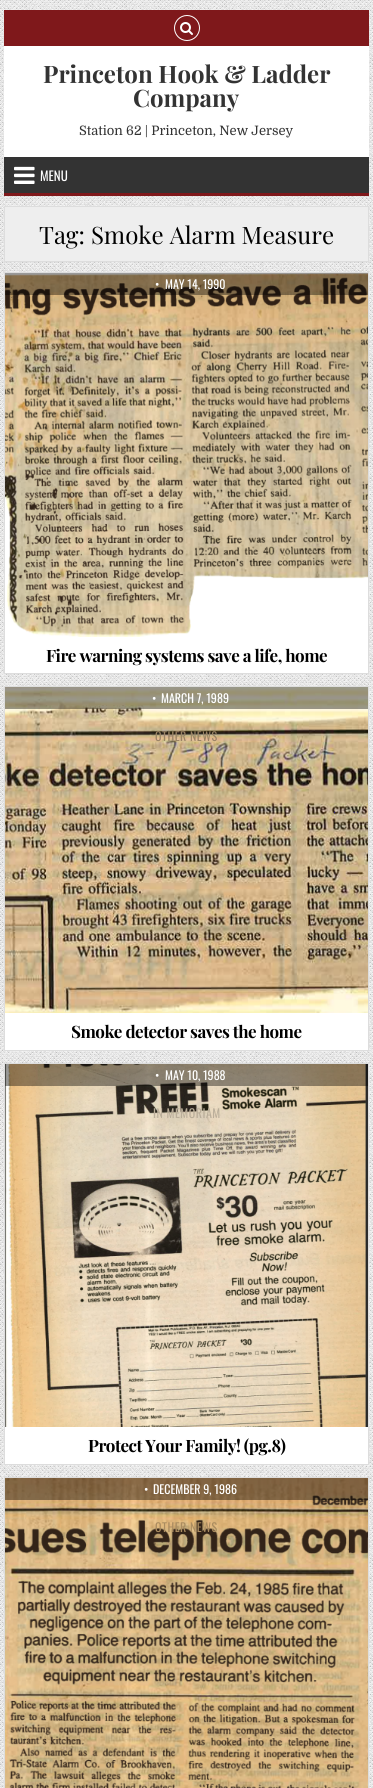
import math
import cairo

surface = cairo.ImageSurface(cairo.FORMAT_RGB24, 373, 1788)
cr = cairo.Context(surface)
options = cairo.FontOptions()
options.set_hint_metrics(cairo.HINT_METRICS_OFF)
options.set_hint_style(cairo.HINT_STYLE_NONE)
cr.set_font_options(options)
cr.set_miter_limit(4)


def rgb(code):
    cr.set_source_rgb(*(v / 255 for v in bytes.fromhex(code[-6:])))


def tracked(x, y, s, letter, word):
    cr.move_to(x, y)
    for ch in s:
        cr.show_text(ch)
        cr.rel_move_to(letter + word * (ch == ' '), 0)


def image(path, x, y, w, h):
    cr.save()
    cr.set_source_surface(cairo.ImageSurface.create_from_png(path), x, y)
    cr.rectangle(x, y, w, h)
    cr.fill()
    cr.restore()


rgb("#ffffff")
cr.paint()
image("img/1.png", 0, 0, 373, 1788)
rgb("#7f181b")
cr.rectangle(4, 10, 365, 36)
cr.fill()
cr.arc(187, 28, 12.5, 0, 2 * math.pi)
rgb("#ffffff")
cr.set_line_width(1)
cr.stroke()
image("img/2.png", 180, 22, 13, 13)
for x, y, w, h, color in [
    (4, 46, 365, 111, "#ffffff"),
    (4, 157, 365, 36, "#333333"),
    (4, 193, 365, 3, "#7f181b"),
]:
    rgb(color)
    cr.rectangle(x, y, w, h)
    cr.fill()
image("img/3.png", 14, 166, 21, 18)
rgb("#eeeeee")
cr.rectangle(4.5, 206.5, 364, 55)
cr.fill_preserve()
rgb("#dddddd")
cr.stroke()
rgb("#ffffff")
cr.rectangle(4.5, 272.5, 364, 401)
cr.fill_preserve()
rgb("#dddddd")
cr.stroke()
image("img/4.png", 5, 273, 363, 364)
cr.set_source_rgba(0, 0, 0, 0.4)
cr.rectangle(5, 273, 363, 22)
cr.fill()
rgb("#ffffff")
cr.rectangle(5, 1013, 363, 37)
cr.fill()
cr.rectangle(4.5, 686.5, 364, 364)
rgb("#dddddd")
cr.stroke()
image("img/5.png", 5, 687, 363, 326)
cr.set_source_rgba(0, 0, 0, 0.4)
cr.rectangle(5, 687, 363, 22)
cr.fill()
rgb("#ffffff")
cr.rectangle(5, 1427, 363, 37)
cr.fill()
cr.rectangle(4.5, 1063.5, 364, 401)
rgb("#dddddd")
cr.stroke()
image("img/6.png", 5, 1064, 363, 363)
cr.set_source_rgba(0, 0, 0, 0.4)
cr.rectangle(5, 1064, 363, 22)
cr.fill()
cr.rectangle(4.5, 1477.5, 364, 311)
rgb("#dddddd")
cr.stroke()
image("img/7.png", 5, 1478, 363, 310)
cr.set_source_rgba(0, 0, 0, 0.4)
cr.rectangle(5, 1478, 363, 22)
cr.fill()
cr.select_font_face("Playfair Display", cairo.FONT_SLANT_NORMAL, cairo.FONT_WEIGHT_BOLD)
cr.set_font_size(24)
rgb("#333333")
cr.move_to(43, 83)
cr.show_text("Princeton Hook & Ladder")
cr.move_to(133, 107)
cr.show_text("Company")
cr.select_font_face("Domine")
cr.set_font_size(13)
cr.move_to(79, 135)
cr.show_text("Station 62 | Princeton, New Jersey")
cr.select_font_face("Oswald")
rgb("#ffffff")
cr.move_to(40, 181)
cr.show_text("MENU")
cr.select_font_face("Playfair Display")
cr.set_font_size(24)
rgb("#000000")
cr.move_to(39, 244)
cr.show_text("Tag: Smoke Alarm Measure")
cr.select_font_face("Oswald")
cr.set_font_size(12)
rgb("#ffffff")
cr.move_to(155, 289)
cr.show_text("•")
cr.move_to(165, 289)
cr.show_text("MAY 14, 1990")
cr.select_font_face("Playfair Display", cairo.FONT_SLANT_NORMAL, cairo.FONT_WEIGHT_BOLD)
cr.set_font_size(17)
rgb("#000000")
tracked(46, 662, "Fire warning systems save a life, home", -0.5, 0)
cr.select_font_face("Oswald")
cr.set_font_size(12)
rgb("#ffffff")
cr.move_to(152, 703)
cr.show_text("•")
cr.move_to(161, 703)
cr.show_text("MARCH 7, 1989")
rgb("#9a8465")
tracked(155, 741, "OTHER NEWS", 0.5, 0)
cr.select_font_face("Playfair Display", cairo.FONT_SLANT_NORMAL, cairo.FONT_WEIGHT_BOLD)
cr.set_font_size(17)
rgb("#000000")
tracked(71, 1038, "Smoke detector saves the home", -0.5, 0)
cr.select_font_face("Oswald")
cr.set_font_size(12)
rgb("#ffffff")
cr.move_to(155, 1080)
cr.show_text("•")
cr.move_to(165, 1080)
cr.show_text("MAY 10, 1988")
rgb("#b9ad99")
tracked(153, 1118, "IN MEMORIAM", 0.5, 0)
cr.select_font_face("Playfair Display", cairo.FONT_SLANT_NORMAL, cairo.FONT_WEIGHT_BOLD)
cr.set_font_size(17)
rgb("#000000")
tracked(88, 1452, "Protect Your Family! (pg.8)", -0.5, 0)
cr.select_font_face("Oswald")
cr.set_font_size(12)
rgb("#ffffff")
cr.move_to(144, 1494)
cr.show_text("•")
cr.move_to(153, 1494)
cr.show_text("DECEMBER 9, 1986")
rgb("#aa8c60")
tracked(155, 1532, "OTHER NEWS", 0.5, 0)
surface.write_to_png("page.png")
